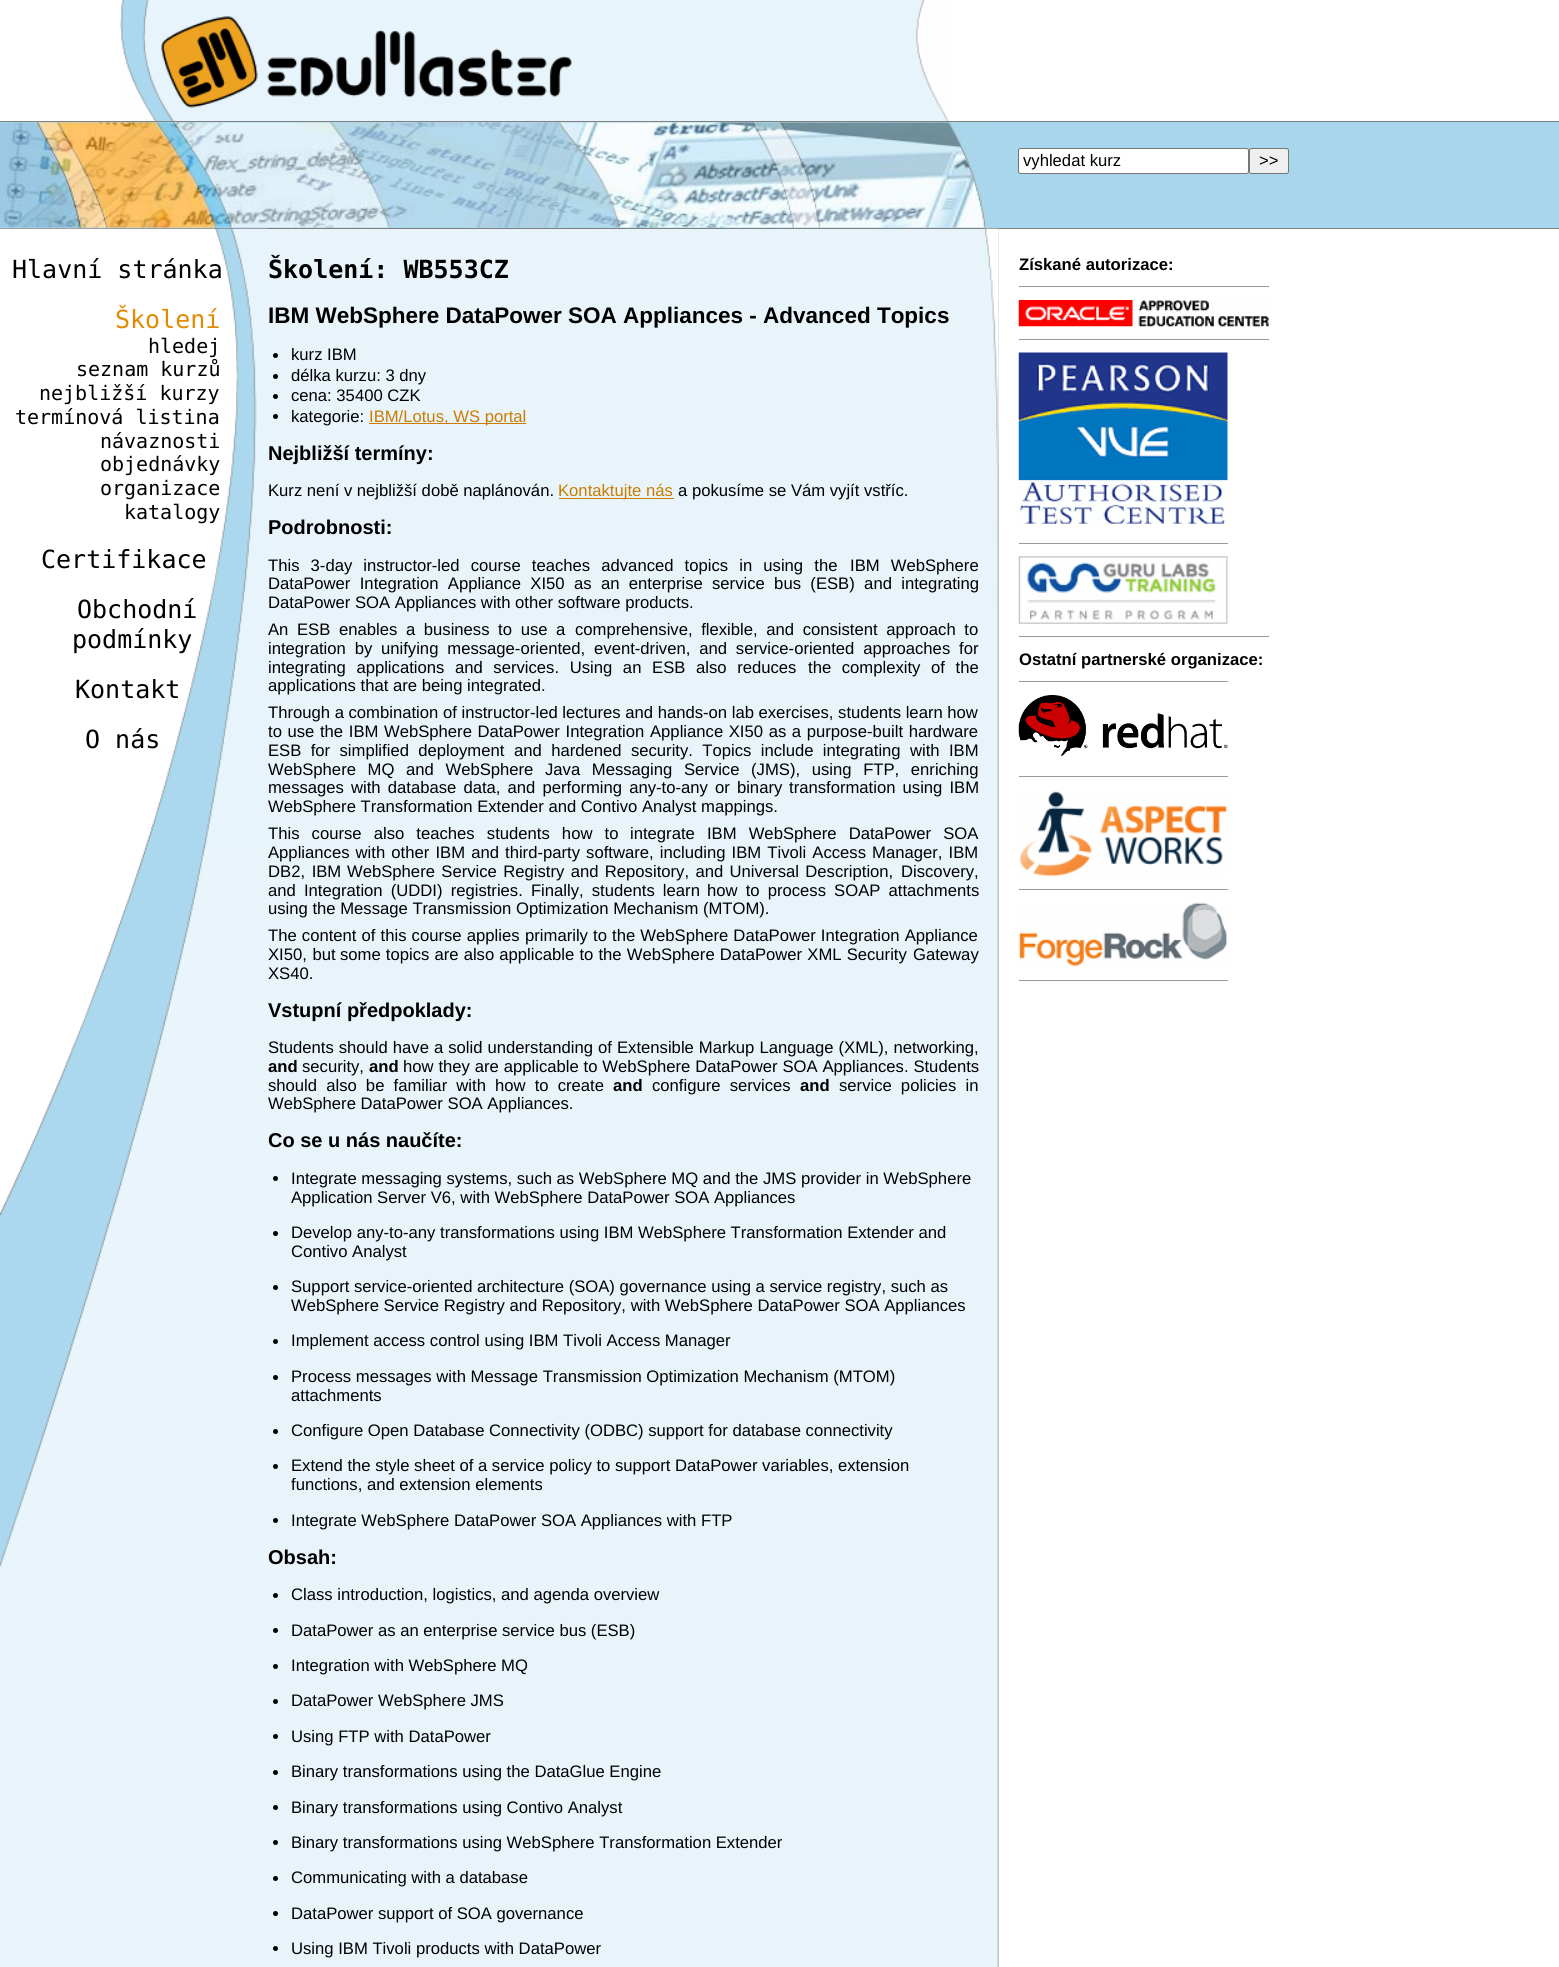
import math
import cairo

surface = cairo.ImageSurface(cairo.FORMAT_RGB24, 1559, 1967)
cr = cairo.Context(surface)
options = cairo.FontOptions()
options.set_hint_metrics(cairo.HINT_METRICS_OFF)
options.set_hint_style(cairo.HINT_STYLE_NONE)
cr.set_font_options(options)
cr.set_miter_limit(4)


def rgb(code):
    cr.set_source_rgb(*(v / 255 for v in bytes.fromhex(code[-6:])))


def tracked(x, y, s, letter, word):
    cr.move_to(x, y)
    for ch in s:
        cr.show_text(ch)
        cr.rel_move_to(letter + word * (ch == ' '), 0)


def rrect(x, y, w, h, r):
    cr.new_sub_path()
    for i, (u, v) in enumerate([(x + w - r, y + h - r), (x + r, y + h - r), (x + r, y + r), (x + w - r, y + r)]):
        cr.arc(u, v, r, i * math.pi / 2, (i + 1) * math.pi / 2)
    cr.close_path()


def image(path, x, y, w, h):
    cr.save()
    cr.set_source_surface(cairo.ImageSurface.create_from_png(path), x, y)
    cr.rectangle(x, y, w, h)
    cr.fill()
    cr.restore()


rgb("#ffffff")
cr.paint()
image("img/1.png", 120, 0, 829, 121)
rgb("#a8d6ed")
cr.rectangle(0, 122, 1559, 106)
cr.fill()
image("img/2.png", 0, 122, 987, 106)
rgb("#808080")
cr.rectangle(0, 121, 1559, 1)
cr.fill()
cr.rectangle(0, 228, 1559, 1)
cr.fill()
rgb("#ffffff")
rrect(1018.5, 148.5, 230, 25, 2)
cr.fill_preserve()
rgb("#767676")
cr.set_line_width(1)
cr.stroke()
rgb("#efefef")
rrect(1249.5, 148.5, 39, 25, 2)
cr.fill_preserve()
rgb("#767676")
cr.stroke()
rgb("#e8f4fa")
cr.rectangle(0, 229, 999, 1738)
cr.fill()
image("img/3.png", 0, 228, 268, 1339)
image("img/4.png", 985, 228, 14, 1739)
image("img/5.png", 985, 228, 14, 380)
rgb("#000000")
cr.arc(275.5, 355.5, 2.5, 0, 2 * math.pi)
cr.fill()
cr.arc(275.5, 376.5, 2.5, 0, 2 * math.pi)
cr.fill()
cr.arc(275.5, 396.5, 2.5, 0, 2 * math.pi)
cr.fill()
cr.arc(275.5, 416.5, 2.5, 0, 2 * math.pi)
cr.fill()
rgb("#ca7c00")
cr.rectangle(369, 423, 157, 1)
cr.fill()
cr.rectangle(559, 498, 115, 1)
cr.fill()
rgb("#000000")
cr.arc(275.5, 1178.5, 2.5, 0, 2 * math.pi)
cr.fill()
cr.arc(275.5, 1233.5, 2.5, 0, 2 * math.pi)
cr.fill()
cr.arc(275.5, 1287.5, 2.5, 0, 2 * math.pi)
cr.fill()
cr.arc(275.5, 1341.5, 2.5, 0, 2 * math.pi)
cr.fill()
cr.arc(275.5, 1377.5, 2.5, 0, 2 * math.pi)
cr.fill()
cr.arc(275.5, 1431.5, 2.5, 0, 2 * math.pi)
cr.fill()
cr.arc(275.5, 1466.5, 2.5, 0, 2 * math.pi)
cr.fill()
cr.arc(275.5, 1520.5, 2.5, 0, 2 * math.pi)
cr.fill()
cr.arc(275.5, 1595.5, 2.5, 0, 2 * math.pi)
cr.fill()
cr.arc(275.5, 1630.5, 2.5, 0, 2 * math.pi)
cr.fill()
cr.arc(275.5, 1666.5, 2.5, 0, 2 * math.pi)
cr.fill()
cr.arc(275.5, 1701.5, 2.5, 0, 2 * math.pi)
cr.fill()
cr.arc(275.5, 1736.5, 2.5, 0, 2 * math.pi)
cr.fill()
cr.arc(275.5, 1772.5, 2.5, 0, 2 * math.pi)
cr.fill()
cr.arc(275.5, 1807.5, 2.5, 0, 2 * math.pi)
cr.fill()
cr.arc(275.5, 1842.5, 2.5, 0, 2 * math.pi)
cr.fill()
cr.arc(275.5, 1878.5, 2.5, 0, 2 * math.pi)
cr.fill()
cr.arc(275.5, 1913.5, 2.5, 0, 2 * math.pi)
cr.fill()
cr.arc(275.5, 1948.5, 2.5, 0, 2 * math.pi)
cr.fill()
rgb("#999999")
cr.rectangle(1019, 286, 250, 1)
cr.fill()
image("img/6.png", 1018, 300, 251, 27)
cr.rectangle(1019, 339, 250, 1)
cr.fill()
image("img/7.png", 1018, 352, 210, 172)
cr.rectangle(1019, 543, 209, 1)
cr.fill()
image("img/8.png", 1018, 556, 210, 68)
cr.rectangle(1019, 636, 250, 1)
cr.fill()
cr.rectangle(1019, 681, 209, 1)
cr.fill()
image("img/9.png", 1018, 695, 210, 61)
cr.rectangle(1019, 776, 209, 1)
cr.fill()
image("img/10.png", 1019, 791, 208, 86)
cr.rectangle(1019, 889, 209, 1)
cr.fill()
image("img/11.png", 1018, 902, 210, 65)
cr.rectangle(1019, 980, 209, 1)
cr.fill()
cr.select_font_face("Liberation Sans")
cr.set_font_size(16.65)
rgb("#000000")
cr.move_to(1023, 166)
cr.show_text("vyhledat kurz")
cr.move_to(1259, 166)
cr.show_text(">>")
cr.select_font_face("DejaVu Sans Mono")
cr.set_font_size(25)
cr.move_to(12, 278)
cr.show_text("Hlavní stránka")
rgb("#e18b03")
cr.move_to(115, 328)
cr.show_text("Školení")
cr.set_font_size(20)
rgb("#000000")
for x, y, s in [
    (148, 353, "hledej"),
    (76, 376, "seznam kurzů"),
    (39, 400, "nejbližší kurzy"),
    (15, 424, "termínová listina"),
    (100, 448, "návaznosti"),
    (100, 471, "objednávky"),
    (100, 495, "organizace"),
    (124, 519, "katalogy"),
]:
    cr.move_to(x, y)
    cr.show_text(s)
cr.set_font_size(25)
for x, y, s in [
    (41, 568, "Certifikace"),
    (77, 618, "Obchodní"),
    (72, 648, "podmínky"),
    (75, 698, "Kontakt"),
    (85, 748, "O nás"),
]:
    cr.move_to(x, y)
    cr.show_text(s)
cr.select_font_face("DejaVu Sans Mono", cairo.FONT_SLANT_NORMAL, cairo.FONT_WEIGHT_BOLD)
cr.move_to(268, 278)
cr.show_text("Školení: WB553CZ")
cr.select_font_face("Liberation Sans", cairo.FONT_SLANT_NORMAL, cairo.FONT_WEIGHT_BOLD)
cr.set_font_size(22.5)
cr.move_to(268, 323)
cr.show_text("IBM WebSphere DataPower SOA Appliances - Advanced Topics")
cr.select_font_face("Liberation Sans")
cr.set_font_size(16.65)
for x, y, s in [
    (291, 360, "kurz IBM"),
    (291, 381, "délka kurzu: 3 dny"),
    (291, 401, "cena: 35400 CZK"),
    (291, 422, "kategorie:"),
]:
    cr.move_to(x, y)
    cr.show_text(s)
rgb("#ca7c00")
cr.move_to(369, 422)
cr.show_text("IBM/Lotus, WS portal")
cr.select_font_face("Liberation Sans", cairo.FONT_SLANT_NORMAL, cairo.FONT_WEIGHT_BOLD)
cr.set_font_size(20)
rgb("#000000")
cr.move_to(268, 460)
cr.show_text("Nejbližší termíny:")
cr.select_font_face("Liberation Sans")
cr.set_font_size(16.65)
cr.move_to(268, 496)
cr.show_text("Kurz není v nejbližší době naplánován.")
rgb("#ca7c00")
cr.move_to(558, 496)
cr.show_text("Kontaktujte nás")
rgb("#000000")
cr.move_to(678, 496)
cr.show_text("a pokusíme se Vám vyjít vstříc.")
cr.select_font_face("Liberation Sans", cairo.FONT_SLANT_NORMAL, cairo.FONT_WEIGHT_BOLD)
cr.set_font_size(20)
cr.move_to(268, 534)
cr.show_text("Podrobnosti:")
cr.select_font_face("Liberation Sans")
cr.set_font_size(16.65)
tracked(268, 571, "This 3-day instructor-led course teaches advanced topics in using the", 0, 6.5)
tracked(850, 571, "IBM WebSphere", 0, 6.5)
tracked(268, 589, "DataPower Integration Appliance XI50 as an enterprise", 0, 4.75)
tracked(712, 589, "service bus (ESB) and integrating", 0, 4.75)
cr.move_to(268, 608)
cr.show_text("DataPower SOA Appliances with other software products.")
tracked(268, 635, "An ESB enables a business to use a", 0, 4)
tracked(575, 635, "comprehensive, flexible, and consistent approach to", 0, 4)
tracked(268, 654, "integration by", 0, 4.25)
tracked(381, 654, "unifying message-oriented, event-driven, and service-oriented approaches", 0, 4.25)
cr.move_to(959, 654)
cr.show_text("for")
tracked(268, 673, "integrating applications and services. Using an ESB also reduces", 0, 6)
tracked(808, 673, "the complexity of the", 0, 6)
cr.move_to(268, 691)
cr.show_text("applications that are being integrated.")
cr.move_to(268, 718)
cr.show_text("Through a combination of instructor-led lectures and hands-on lab exercises, students learn how")
tracked(268, 737, "to use the IBM WebSphere DataPower Integration", 0, 1)
tracked(650, 737, "Appliance XI50 as a purpose-built hardware", 0, 1)
tracked(268, 756, "ESB for simplified deployment", 0, 4.75)
tracked(514, 756, "and hardened security. Topics include integrating with IBM", 0, 4.75)
tracked(268, 775, "WebSphere MQ", 0, 7)
tracked(406, 775, "and WebSphere Java Messaging Service (JMS), using FTP, enriching", 0, 7)
tracked(268, 793, "messages with database data, and performing any-to-any or binary", 0, 2.5)
tracked(789, 793, "transformation using IBM", 0, 2.5)
cr.move_to(268, 812)
cr.show_text("WebSphere Transformation Extender and Contivo Analyst mappings.")
tracked(268, 839, "This course also teaches students how to", 0, 7.5)
tracked(630, 839, "integrate IBM WebSphere DataPower SOA", 0, 7.5)
tracked(268, 858, "Appliances with other IBM and", 0, 1.5)
tracked(505, 858, "third-party software, including IBM Tivoli Access Manager, IBM", 0, 1.5)
tracked(268, 877, "DB2, IBM", 0, 2)
tracked(347, 877, "WebSphere Service Registry and Repository, and Universal Description,", 0, 1.75)
cr.move_to(901, 877)
cr.show_text("Discovery,")
tracked(268, 896, "and Integration (UDDI) registries. Finally, students learn", 0, 3.5)
tracked(707, 896, "how to process SOAP attachments", 0, 3.5)
cr.move_to(268, 914)
cr.show_text("using the Message Transmission Optimization Mechanism (MTOM).")
tracked(268, 941, "The content of this course applies", 0, 0.5)
tracked(525, 941, "primarily to the WebSphere DataPower Integration Appliance", 0, 0.5)
tracked(268, 960, "XI50, but", 0, 1)
tracked(340, 960, "some topics are also applicable to the WebSphere DataPower XML Security", 0, 0.5)
cr.move_to(913, 960)
cr.show_text("Gateway")
cr.move_to(268, 979)
cr.show_text("XS40.")
cr.select_font_face("Liberation Sans", cairo.FONT_SLANT_NORMAL, cairo.FONT_WEIGHT_BOLD)
cr.set_font_size(20)
cr.move_to(268, 1017)
cr.show_text("Vstupní předpoklady:")
cr.select_font_face("Liberation Sans")
cr.set_font_size(16.65)
tracked(268, 1053, "Students should have a solid understanding of Extensible Markup Language (XML), networking,", 0, 0.4)
cr.select_font_face("Liberation Sans", cairo.FONT_SLANT_NORMAL, cairo.FONT_WEIGHT_BOLD)
cr.move_to(268, 1072)
cr.show_text("and")
cr.select_font_face("Liberation Sans")
cr.move_to(302, 1072)
cr.show_text("security,")
cr.select_font_face("Liberation Sans", cairo.FONT_SLANT_NORMAL, cairo.FONT_WEIGHT_BOLD)
cr.move_to(369, 1072)
cr.show_text("and")
cr.select_font_face("Liberation Sans")
tracked(403, 1072, "how they are applicable to WebSphere DataPower SOA Appliances. Students", 0, 0.25)
tracked(268, 1091, "should also be familiar with how to create", 0, 4.5)
cr.select_font_face("Liberation Sans", cairo.FONT_SLANT_NORMAL, cairo.FONT_WEIGHT_BOLD)
cr.move_to(613, 1091)
cr.show_text("and")
cr.select_font_face("Liberation Sans")
tracked(652, 1091, "configure services", 0, 4.5)
cr.select_font_face("Liberation Sans", cairo.FONT_SLANT_NORMAL, cairo.FONT_WEIGHT_BOLD)
cr.move_to(800, 1091)
cr.show_text("and")
cr.select_font_face("Liberation Sans")
tracked(839, 1091, "service policies in", 0, 4.5)
cr.move_to(268, 1109)
cr.show_text("WebSphere DataPower SOA Appliances.")
cr.select_font_face("Liberation Sans", cairo.FONT_SLANT_NORMAL, cairo.FONT_WEIGHT_BOLD)
cr.set_font_size(20)
cr.move_to(268, 1147)
cr.show_text("Co se u nás naučíte:")
cr.select_font_face("Liberation Sans")
cr.set_font_size(16.65)
for x, y, s in [
    (291, 1184, "Integrate messaging systems, such as WebSphere MQ and the JMS provider in WebSphere"),
    (291, 1203, "Application Server V6, with WebSphere DataPower SOA Appliances"),
    (291, 1238, "Develop any-to-any transformations using IBM WebSphere Transformation Extender and"),
    (291, 1257, "Contivo Analyst"),
    (291, 1292, "Support service-oriented architecture (SOA) governance using a service registry, such as"),
    (291, 1311, "WebSphere Service Registry and Repository, with WebSphere DataPower SOA Appliances"),
    (291, 1346, "Implement access control using IBM Tivoli Access Manager"),
    (291, 1382, "Process messages with Message Transmission Optimization Mechanism (MTOM)"),
    (291, 1401, "attachments"),
    (291, 1436, "Configure Open Database Connectivity (ODBC) support for database connectivity"),
    (291, 1471, "Extend the style sheet of a service policy to support DataPower variables, extension"),
    (291, 1490, "functions, and extension elements"),
    (291, 1526, "Integrate WebSphere DataPower SOA Appliances with FTP"),
]:
    cr.move_to(x, y)
    cr.show_text(s)
cr.select_font_face("Liberation Sans", cairo.FONT_SLANT_NORMAL, cairo.FONT_WEIGHT_BOLD)
cr.set_font_size(20)
cr.move_to(268, 1564)
cr.show_text("Obsah:")
cr.select_font_face("Liberation Sans")
cr.set_font_size(16.65)
for x, y, s in [
    (291, 1600, "Class introduction, logistics, and agenda overview"),
    (291, 1636, "DataPower as an enterprise service bus (ESB)"),
    (291, 1671, "Integration with WebSphere MQ"),
    (291, 1706, "DataPower WebSphere JMS"),
    (291, 1742, "Using FTP with DataPower"),
    (291, 1777, "Binary transformations using the DataGlue Engine"),
    (291, 1813, "Binary transformations using Contivo Analyst"),
    (291, 1848, "Binary transformations using WebSphere Transformation Extender"),
    (291, 1883, "Communicating with a database"),
    (291, 1919, "DataPower support of SOA governance"),
    (291, 1954, "Using IBM Tivoli products with DataPower"),
]:
    cr.move_to(x, y)
    cr.show_text(s)
cr.select_font_face("Liberation Sans", cairo.FONT_SLANT_NORMAL, cairo.FONT_WEIGHT_BOLD)
cr.move_to(1019, 270)
cr.show_text("Získané autorizace:")
cr.move_to(1019, 665)
cr.show_text("Ostatní partnerské organizace:")
surface.write_to_png("page.png")
